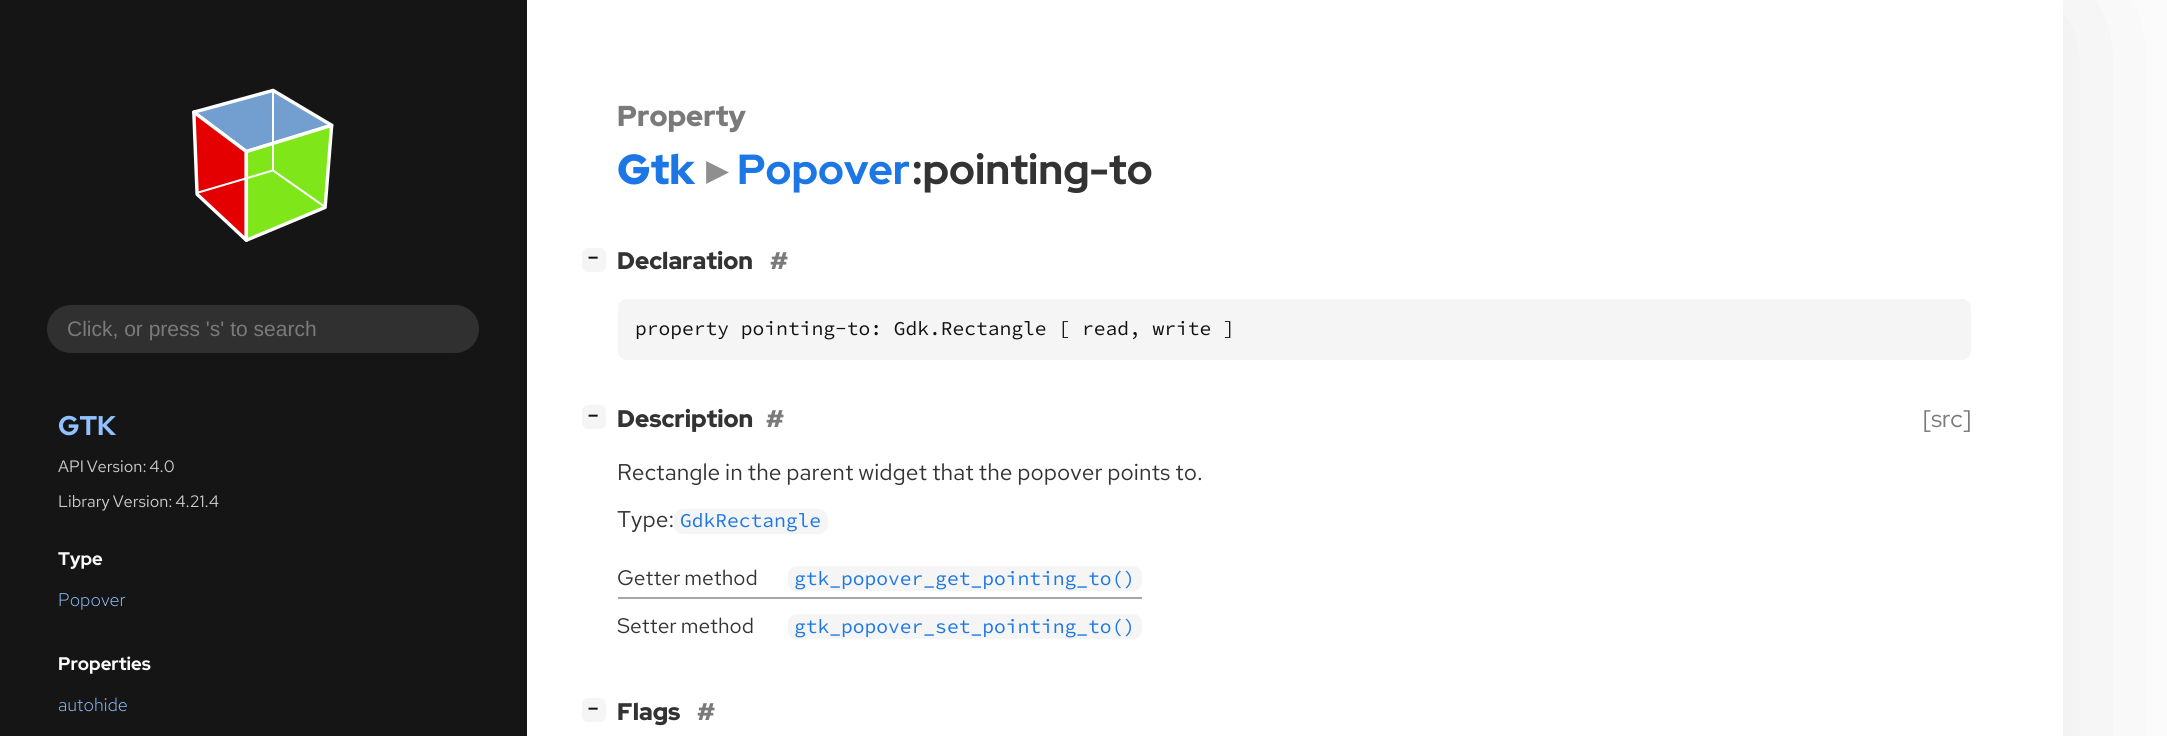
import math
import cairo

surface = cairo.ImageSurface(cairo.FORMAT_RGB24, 2167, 736)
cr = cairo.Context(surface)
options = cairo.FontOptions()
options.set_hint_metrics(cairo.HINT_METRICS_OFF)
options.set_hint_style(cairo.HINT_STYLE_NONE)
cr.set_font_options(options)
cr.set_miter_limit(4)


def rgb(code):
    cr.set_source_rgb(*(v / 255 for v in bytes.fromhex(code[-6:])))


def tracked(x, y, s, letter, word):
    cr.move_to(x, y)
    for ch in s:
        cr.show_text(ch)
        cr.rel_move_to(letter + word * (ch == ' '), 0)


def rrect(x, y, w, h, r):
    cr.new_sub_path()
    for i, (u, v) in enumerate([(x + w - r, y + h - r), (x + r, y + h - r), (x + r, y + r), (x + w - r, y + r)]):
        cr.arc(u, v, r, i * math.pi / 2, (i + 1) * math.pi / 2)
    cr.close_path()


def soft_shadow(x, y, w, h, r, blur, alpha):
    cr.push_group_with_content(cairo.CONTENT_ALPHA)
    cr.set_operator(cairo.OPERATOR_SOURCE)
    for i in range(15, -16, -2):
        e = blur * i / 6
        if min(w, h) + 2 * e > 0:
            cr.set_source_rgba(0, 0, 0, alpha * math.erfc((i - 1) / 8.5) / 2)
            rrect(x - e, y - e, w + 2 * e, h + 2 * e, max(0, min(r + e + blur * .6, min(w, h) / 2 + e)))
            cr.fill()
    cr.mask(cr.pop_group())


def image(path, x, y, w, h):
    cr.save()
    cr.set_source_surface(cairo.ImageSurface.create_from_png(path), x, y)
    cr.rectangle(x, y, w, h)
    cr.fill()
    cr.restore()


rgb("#ffffff")
cr.paint()
cr.save()
cr.set_fill_rule(cairo.FILL_RULE_EVEN_ODD)
cr.new_path()
cr.move_to(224, 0)
cr.line_to(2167, 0)
cr.line_to(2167, 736)
cr.line_to(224, 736)
cr.close_path()
cr.move_to(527, 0)
cr.line_to(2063, 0)
cr.line_to(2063, 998)
cr.line_to(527, 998)
cr.close_path()
cr.clip()
rgb("#000000")
soft_shadow(527, 0, 1536, 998, 0, 100.5, 0.1)
cr.restore()
rgb("#151515")
cr.rectangle(0, 0, 527, 736)
cr.fill()
image("img/1.png", 192, 88, 142, 154)
rgb("#303030")
rrect(47, 305, 432, 48, 24)
cr.fill()
rgb("#f5f5f5")
rrect(582, 248, 24, 24, 6)
cr.fill()
rrect(618, 299, 1353, 61, 9)
cr.fill()
rrect(582, 405, 24, 24, 6)
cr.fill()
rrect(674, 509, 154, 25, 9)
cr.fill()
rgb("#a6a6a6")
cr.rectangle(618, 597, 524, 2)
cr.fill()
rgb("#f5f5f5")
rrect(788, 566, 354, 25, 9)
cr.fill()
rrect(788, 614, 354, 25, 9)
cr.fill()
rrect(582, 698, 24, 24, 6)
cr.fill()
cr.select_font_face("Liberation Sans")
cr.set_font_size(21)
rgb("#7a7a7a")
cr.move_to(67, 336)
cr.show_text("Click, or press 's' to search")
cr.select_font_face("Red Hat Display ExtraBold")
cr.set_font_size(27)
rgb("#90c2ff")
cr.move_to(58, 435)
cr.show_text("GTK")
cr.select_font_face("Red Hat Text")
cr.set_font_size(16.5)
rgb("#cccccc")
tracked(58, 472, "API Version: 4.0", 0, -1)
tracked(58, 507, "Library Version: 4.21.4", 0, -1)
cr.select_font_face("Red Hat Display ExtraBold")
cr.set_font_size(18.25)
rgb("#fafafa")
cr.move_to(58, 565)
cr.show_text("Type")
cr.select_font_face("Red Hat Text Light")
rgb("#90c2ff")
cr.move_to(58, 606)
cr.show_text("Popover")
cr.select_font_face("Red Hat Display ExtraBold")
rgb("#fafafa")
cr.move_to(58, 670)
cr.show_text("Properties")
cr.select_font_face("Red Hat Text Light")
rgb("#90c2ff")
cr.move_to(58, 711)
cr.show_text("autohide")
cr.select_font_face("Red Hat Display Black")
cr.set_font_size(28.75)
rgb("#7a7a7a")
cr.move_to(617, 126)
cr.show_text("Property")
cr.set_font_size(42)
rgb("#1c76e4")
cr.move_to(617, 184)
cr.show_text("Gtk")
cr.select_font_face("DejaVu Sans", cairo.FONT_SLANT_NORMAL, cairo.FONT_WEIGHT_BOLD)
rgb("#8f8f8f")
cr.move_to(706, 184)
cr.show_text("▸")
cr.select_font_face("Red Hat Display ExtraBold")
rgb("#1c76e4")
cr.move_to(737, 184)
cr.show_text("Popover")
rgb("#333333")
cr.move_to(912, 184)
cr.show_text(":pointing-to")
cr.select_font_face("DejaVu Sans Mono", cairo.FONT_SLANT_NORMAL, cairo.FONT_WEIGHT_BOLD)
cr.set_font_size(17)
rgb("#111111")
cr.move_to(588, 263)
cr.show_text("−")
cr.select_font_face("Red Hat Display Black")
cr.set_font_size(24)
rgb("#333333")
cr.move_to(617, 269)
cr.show_text("Declaration")
rgb("#7a7a7a")
cr.move_to(770, 269)
cr.show_text("#")
cr.select_font_face("Source Code Pro")
cr.set_font_size(19.6)
rgb("#111111")
cr.move_to(635, 335)
cr.show_text("property pointing-to: Gdk.Rectangle [ read, write ]")
cr.select_font_face("DejaVu Sans Mono", cairo.FONT_SLANT_NORMAL, cairo.FONT_WEIGHT_BOLD)
cr.set_font_size(17)
cr.move_to(588, 421)
cr.show_text("−")
cr.select_font_face("Red Hat Display Black")
cr.set_font_size(24)
rgb("#333333")
cr.move_to(617, 427)
cr.show_text("Description")
rgb("#7a7a7a")
cr.move_to(766, 427)
cr.show_text("#")
cr.select_font_face("Red Hat Display")
cr.move_to(1923, 427)
cr.show_text("[src]")
cr.select_font_face("Red Hat Text")
cr.set_font_size(22.8)
rgb("#333333")
tracked(617, 480, "Rectangle in the parent widget that the popover points to.", 0, -0.5)
cr.move_to(617, 527)
cr.show_text("Type:")
cr.select_font_face("Source Code Pro")
cr.set_font_size(19.6)
rgb("#1c76e4")
cr.move_to(680, 527)
cr.show_text("GdkRectangle")
cr.select_font_face("Red Hat Text")
cr.set_font_size(21)
rgb("#333333")
tracked(617, 585, "Getter method", 0, -1)
cr.select_font_face("Source Code Pro")
cr.set_font_size(19.6)
rgb("#1c76e4")
cr.move_to(794, 585)
cr.show_text("gtk_popover_get_pointing_to()")
cr.select_font_face("Red Hat Text")
cr.set_font_size(21)
rgb("#333333")
tracked(617, 633, "Setter method", 0, -1)
cr.select_font_face("Source Code Pro")
cr.set_font_size(19.6)
rgb("#1c76e4")
cr.move_to(794, 633)
cr.show_text("gtk_popover_set_pointing_to()")
cr.select_font_face("DejaVu Sans Mono", cairo.FONT_SLANT_NORMAL, cairo.FONT_WEIGHT_BOLD)
cr.set_font_size(17)
rgb("#111111")
cr.move_to(588, 714)
cr.show_text("−")
cr.select_font_face("Red Hat Display Black")
cr.set_font_size(24)
rgb("#333333")
cr.move_to(617, 720)
cr.show_text("Flags")
rgb("#7a7a7a")
cr.move_to(697, 720)
cr.show_text("#")
surface.write_to_png("page.png")
